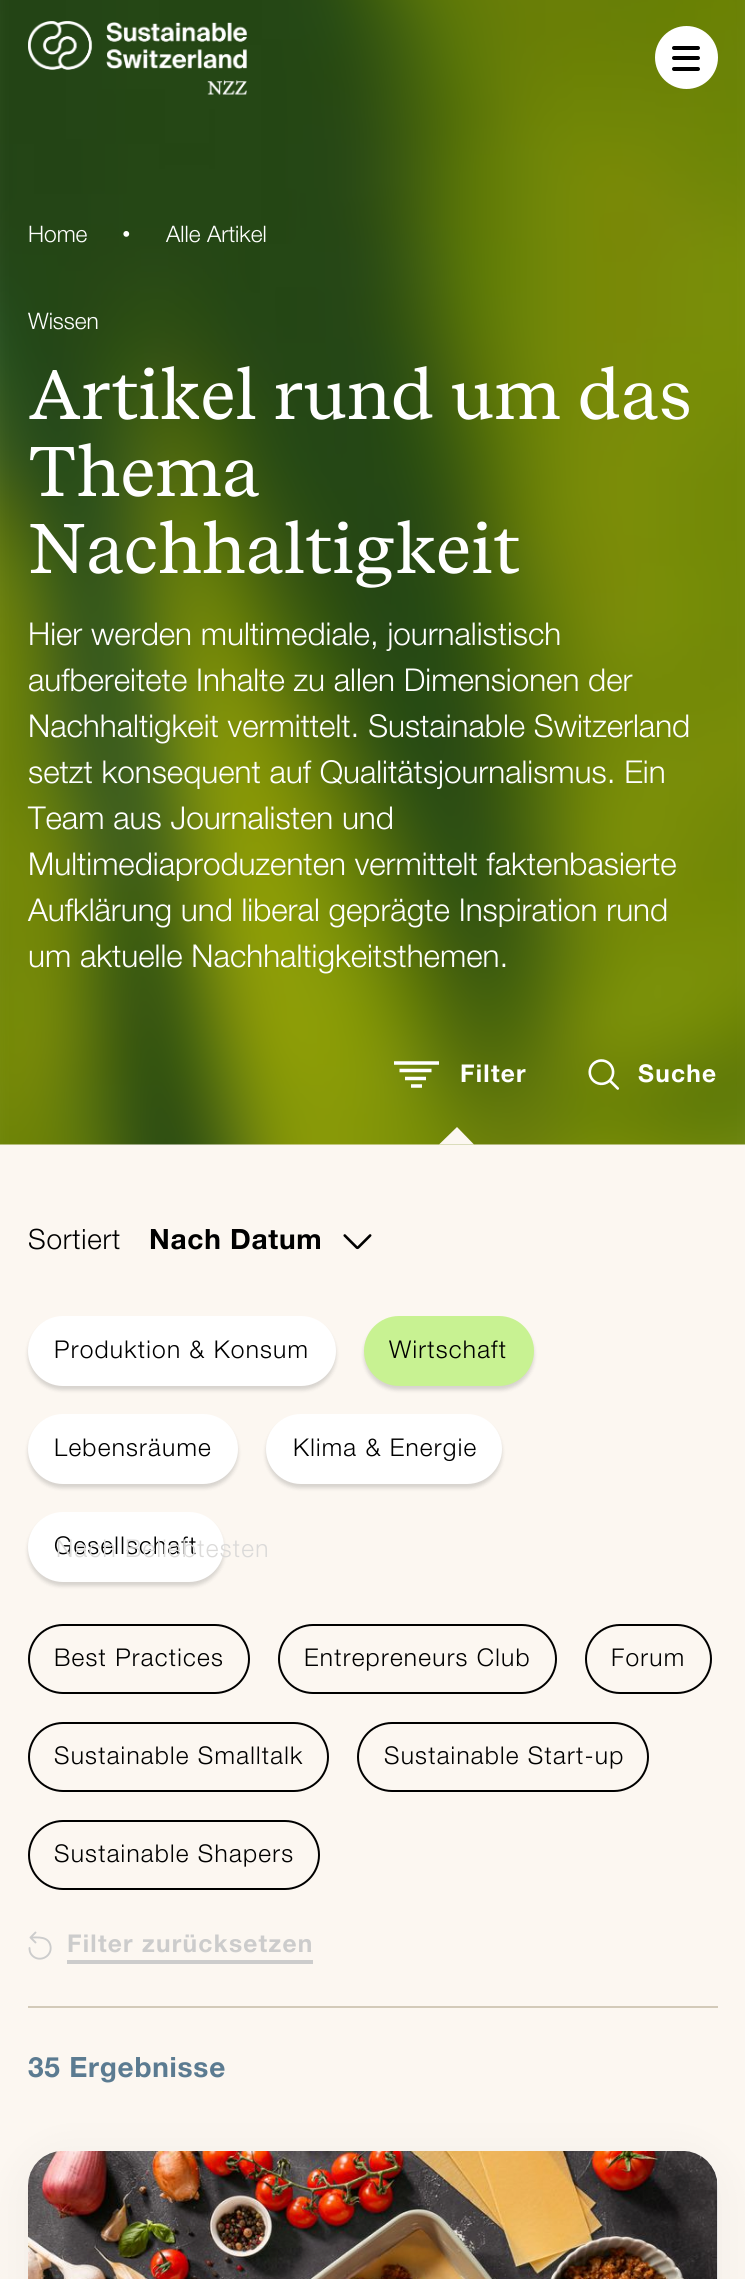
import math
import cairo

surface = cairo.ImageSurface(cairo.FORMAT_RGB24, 745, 2279)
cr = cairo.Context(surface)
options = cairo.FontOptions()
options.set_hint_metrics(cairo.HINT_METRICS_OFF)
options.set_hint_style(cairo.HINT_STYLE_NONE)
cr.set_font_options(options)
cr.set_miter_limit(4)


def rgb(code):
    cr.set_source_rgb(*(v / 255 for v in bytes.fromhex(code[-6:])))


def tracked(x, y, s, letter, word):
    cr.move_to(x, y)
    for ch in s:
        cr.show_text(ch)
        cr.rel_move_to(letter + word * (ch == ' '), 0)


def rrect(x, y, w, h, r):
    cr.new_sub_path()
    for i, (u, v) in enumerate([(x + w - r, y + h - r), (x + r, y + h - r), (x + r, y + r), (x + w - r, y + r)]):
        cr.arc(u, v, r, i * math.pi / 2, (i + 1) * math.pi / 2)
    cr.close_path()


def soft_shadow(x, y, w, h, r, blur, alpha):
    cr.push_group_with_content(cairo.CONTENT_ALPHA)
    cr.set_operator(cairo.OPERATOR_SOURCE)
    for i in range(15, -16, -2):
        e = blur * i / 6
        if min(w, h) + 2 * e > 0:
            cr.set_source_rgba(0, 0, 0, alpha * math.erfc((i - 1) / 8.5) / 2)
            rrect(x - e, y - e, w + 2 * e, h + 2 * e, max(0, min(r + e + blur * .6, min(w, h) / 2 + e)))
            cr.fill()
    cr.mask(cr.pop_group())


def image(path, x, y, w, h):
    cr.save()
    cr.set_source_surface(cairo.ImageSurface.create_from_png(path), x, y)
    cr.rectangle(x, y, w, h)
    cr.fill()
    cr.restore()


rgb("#fcf7f1")
cr.paint()
image("img/2.png", 0, 0, 745, 1145)
image("img/1.png", 28, 21, 219, 74)
rgb("#ffffff")
cr.arc(686.5, 57.5, 31.5, 0, 2 * math.pi)
cr.fill()
rgb("#000000")
rrect(672, 46, 28, 4, 2)
cr.fill()
rrect(672, 56, 28, 4, 2)
cr.fill()
rrect(672, 67, 28, 4, 2)
cr.fill()
cr.new_path()
cr.move_to(394, 1063)
cr.line_to(439, 1063)
cr.move_to(399.5, 1070.5)
cr.line_to(431.5, 1070.5)
cr.move_to(405, 1078.5)
cr.line_to(426, 1078.5)
cr.move_to(411, 1086)
cr.line_to(422, 1086)
rgb("#ffffff")
cr.set_line_width(3.5)
cr.stroke()
rgb("#fcf7f1")
cr.new_path()
cr.move_to(474, 1144.5)
cr.line_to(439, 1144.5)
cr.line_to(457, 1127)
cr.close_path()
cr.fill()
image("img/3.png", 588, 1059, 32, 31)
image("img/4.png", 343, 1234, 29, 16)
rgb("#d3cab9")
cr.rectangle(28, 2006, 690, 2)
cr.fill()
rgb("#000000")
soft_shadow(28, 1320, 308, 70, 35, 2, 0.15)
rgb("#ffffff")
rrect(28, 1316, 308, 70, 35)
cr.fill()
rgb("#000000")
soft_shadow(364, 1320, 170, 70, 35, 2, 0.15)
rgb("#c8f292")
rrect(364, 1316, 170, 70, 35)
cr.fill()
rgb("#000000")
soft_shadow(28, 1418, 210, 70, 35, 2, 0.15)
rgb("#ffffff")
rrect(28, 1414, 210, 70, 35)
cr.fill()
rgb("#000000")
soft_shadow(266, 1418, 236, 70, 35, 2, 0.15)
rgb("#ffffff")
rrect(266, 1414, 236, 70, 35)
cr.fill()
rgb("#000000")
soft_shadow(28, 1516, 196, 70, 35, 2, 0.15)
rgb("#ffffff")
rrect(28, 1512, 196, 70, 35)
cr.fill()
rrect(29, 1625, 220, 68, 34)
rgb("#000000")
cr.set_line_width(2)
cr.stroke()
rrect(279, 1625, 277, 68, 34)
cr.stroke()
rrect(586, 1625, 125, 68, 34)
cr.stroke()
rrect(29, 1723, 299, 68, 34)
cr.stroke()
rrect(358, 1723, 290, 68, 34)
cr.stroke()
rrect(29, 1821, 290, 68, 34)
cr.stroke()
cr.new_path()
cr.move_to(35.5, 1932.5)
cr.line_to(30.5, 1937.5)
cr.line_to(35.5, 1942.5)
cr.move_to(29.5, 1948)
cr.curve_to(29.5, 1950.5, 30, 1952.5, 31, 1954)
cr.curve_to(37.5, 1963.5, 52.5, 1957.5, 50.5, 1946)
cr.curve_to(48.5, 1936, 38, 1937.5, 30.5, 1937.5)
rgb("#cccccc")
cr.set_line_width(1.9)
cr.set_line_cap(cairo.LINE_CAP_ROUND)
cr.set_line_join(cairo.LINE_JOIN_ROUND)
cr.stroke()
cr.rectangle(67, 1960, 246, 4)
cr.fill()
rgb("#000000")
soft_shadow(28, 2158, 690, 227, 35, 23.5, 0.05)
rgb("#ffffff")
rrect(28, 2151, 690, 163, 35)
cr.fill()
image("img/5.png", 28, 2151, 690, 128)
cr.select_font_face("Helvetica Neue Light")
cr.set_font_size(22.75)
cr.move_to(28, 242)
cr.show_text("Home")
cr.select_font_face("Liberation Serif")
cr.set_font_size(24.5)
cr.move_to(122, 242)
cr.show_text("•")
cr.select_font_face("Helvetica Neue Light")
cr.set_font_size(22.75)
cr.move_to(166, 242)
cr.show_text("Alle Artikel")
cr.move_to(28, 329)
cr.show_text("Wissen")
cr.select_font_face("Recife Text")
cr.set_font_size(70)
for x, y, s in [
    (28, 419, "Artikel rund um das"),
    (28, 496, "Thema"),
    (28, 573, "Nachhaltigkeit"),
]:
    cr.move_to(x, y)
    cr.show_text(s)
cr.select_font_face("Helvetica Neue Light")
cr.set_font_size(31.5)
for x, y, s in [
    (28, 645, "Hier werden multimediale, journalistisch"),
    (28, 691, "aufbereitete Inhalte zu allen Dimensionen der"),
    (28, 737, "Nachhaltigkeit vermittelt. Sustainable Switzerland"),
    (28, 783, "setzt konsequent auf Qualitätsjournalismus. Ein"),
    (28, 829, "Team aus Journalisten und"),
    (28, 875, "Multimediaproduzenten vermittelt faktenbasierte"),
    (28, 921, "Aufklärung und liberal geprägte Inspiration rund"),
    (28, 967, "um aktuelle Nachhaltigkeitsthemen."),
]:
    cr.move_to(x, y)
    cr.show_text(s)
cr.select_font_face("Helvetica Neue", cairo.FONT_SLANT_NORMAL, cairo.FONT_WEIGHT_BOLD)
cr.set_font_size(24.5)
tracked(460, 1082, "Filter", 1.25, 0)
tracked(638, 1082, "Suche", 1.25, 0)
cr.select_font_face("Helvetica Neue Light")
cr.set_font_size(28)
rgb("#000000")
tracked(28, 1249, "Sortiert", 0.75, 0)
cr.select_font_face("Helvetica Neue", cairo.FONT_SLANT_NORMAL, cairo.FONT_WEIGHT_BOLD)
tracked(149, 1249, "Nach Datum", 0.75, 0)
cr.select_font_face("Helvetica Neue Light")
cr.set_font_size(24.5)
for x, y, s in [
    (54, 1358, "Produktion & Konsum"),
    (389, 1358, "Wirtschaft"),
    (54, 1456, "Lebensräume"),
    (293, 1456, "Klima & Energie"),
    (54, 1554, "Gesellschaft"),
]:
    tracked(x, y, s, 1.25, 0)
rgb("#dbdad9")
tracked(56, 1557, "Nach Beliebtesten", 1.25, 0)
rgb("#000000")
for x, y, s in [
    (54, 1666, "Best Practices"),
    (304, 1666, "Entrepreneurs Club"),
    (611, 1666, "Forum"),
    (54, 1764, "Sustainable Smalltalk"),
    (384, 1764, "Sustainable Start-up"),
    (54, 1862, "Sustainable Shapers"),
]:
    tracked(x, y, s, 1.25, 0)
cr.select_font_face("Helvetica Neue", cairo.FONT_SLANT_NORMAL, cairo.FONT_WEIGHT_BOLD)
rgb("#cccccc")
tracked(67, 1952, "Filter zurücksetzen", 1.25, 0)
cr.set_font_size(28)
rgb("#5b7b91")
tracked(28, 2077, "35 Ergebnisse", 0.75, 0)
surface.write_to_png("page.png")
